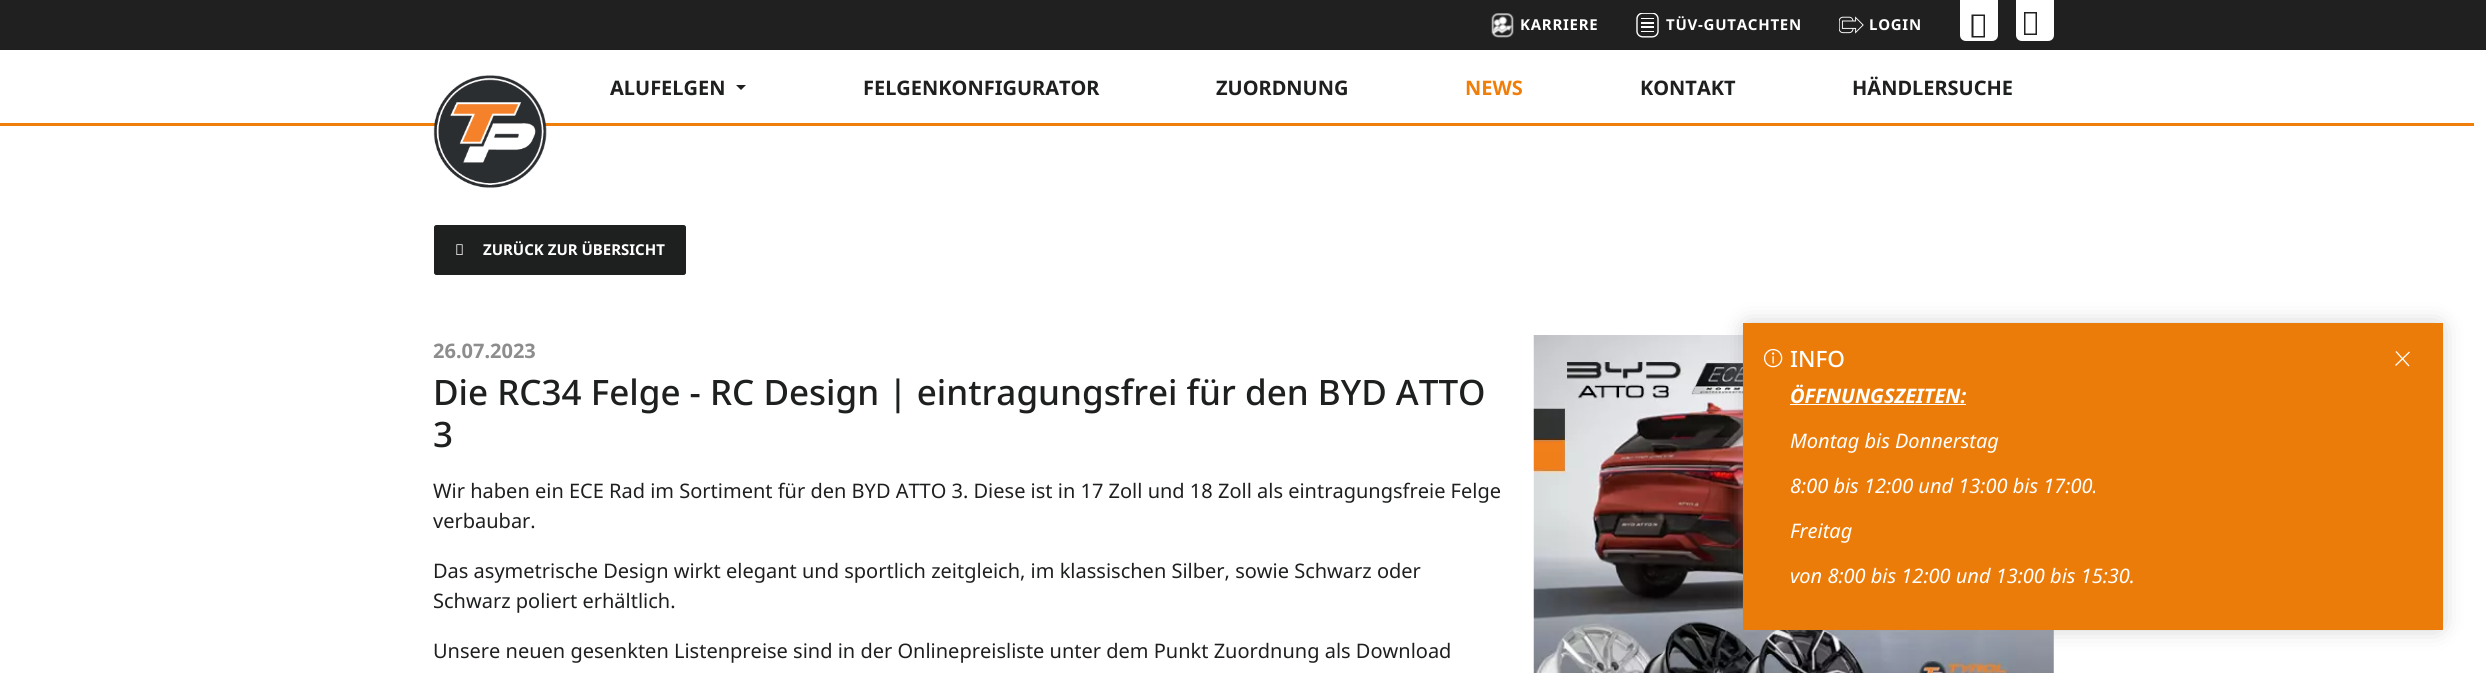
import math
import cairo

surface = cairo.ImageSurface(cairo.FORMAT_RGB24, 2486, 673)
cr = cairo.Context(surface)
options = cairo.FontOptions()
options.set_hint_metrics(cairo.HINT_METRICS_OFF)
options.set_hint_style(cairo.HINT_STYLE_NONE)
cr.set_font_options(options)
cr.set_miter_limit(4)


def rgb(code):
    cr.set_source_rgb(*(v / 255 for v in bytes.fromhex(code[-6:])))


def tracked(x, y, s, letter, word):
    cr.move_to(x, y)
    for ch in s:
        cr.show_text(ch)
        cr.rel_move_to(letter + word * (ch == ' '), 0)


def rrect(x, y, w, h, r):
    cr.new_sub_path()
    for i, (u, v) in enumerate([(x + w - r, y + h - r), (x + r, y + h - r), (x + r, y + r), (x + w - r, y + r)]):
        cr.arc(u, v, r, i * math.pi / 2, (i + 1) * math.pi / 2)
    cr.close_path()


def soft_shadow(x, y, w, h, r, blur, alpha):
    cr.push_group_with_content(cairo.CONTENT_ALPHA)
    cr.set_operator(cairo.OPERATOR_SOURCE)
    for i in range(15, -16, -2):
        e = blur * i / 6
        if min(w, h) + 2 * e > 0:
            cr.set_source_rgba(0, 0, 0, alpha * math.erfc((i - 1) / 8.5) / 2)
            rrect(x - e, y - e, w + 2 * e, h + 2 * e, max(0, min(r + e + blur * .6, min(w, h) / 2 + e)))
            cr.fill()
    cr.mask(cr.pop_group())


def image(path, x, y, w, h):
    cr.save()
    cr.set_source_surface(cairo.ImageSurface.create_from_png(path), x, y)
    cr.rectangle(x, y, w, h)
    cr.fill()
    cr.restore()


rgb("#ffffff")
cr.paint()
rgb("#202020")
cr.rectangle(0, 0, 2486, 50)
cr.fill()
image("img/1.png", 1491, 13, 23, 25)
image("img/2.png", 1636, 13, 23, 25)
image("img/3.png", 1839, 16, 25, 18)
rgb("#ffffff")
cr.new_path()
cr.move_to(1960, 0)
cr.line_to(1998, 0)
cr.line_to(1998, 35)
cr.curve_to(1998, 38.5, 1995.5, 41, 1992, 41)
cr.line_to(1966, 41)
cr.curve_to(1962.5, 41, 1960, 38.5, 1960, 35)
cr.close_path()
cr.fill()
rgb("#202020")
cr.new_path()
cr.move_to(1971.5, 37.5)
cr.line_to(1971.5, 14.5)
cr.line_to(1985, 14.5)
cr.line_to(1985, 37.5)
cr.close_path()
cr.move_to(1973.5, 36)
cr.line_to(1983.5, 36)
cr.line_to(1983.5, 16)
cr.line_to(1973.5, 16)
cr.close_path()
cr.fill()
rgb("#ffffff")
cr.new_path()
cr.move_to(2016, 0)
cr.line_to(2054, 0)
cr.line_to(2054, 35)
cr.curve_to(2054, 38.5, 2051.5, 41, 2048, 41)
cr.line_to(2022, 41)
cr.curve_to(2018.5, 41, 2016, 38.5, 2016, 35)
cr.close_path()
cr.fill()
rgb("#202020")
cr.new_path()
cr.move_to(2024, 35)
cr.line_to(2024, 12)
cr.line_to(2037, 12)
cr.line_to(2037, 35)
cr.close_path()
cr.move_to(2025.5, 33.5)
cr.line_to(2035.5, 33.5)
cr.line_to(2035.5, 13.5)
cr.line_to(2025.5, 13.5)
cr.close_path()
cr.fill()
rgb("#ef7e0a")
cr.rectangle(0, 123, 2474, 3)
cr.fill()
image("img/4.png", 433, 75, 114, 113)
rgb("#1e1f1f")
cr.new_path()
cr.move_to(736, 85)
cr.line_to(746, 85)
cr.line_to(741, 90)
cr.close_path()
cr.fill()
rrect(434.5, 225.5, 251, 49, 2)
cr.fill_preserve()
cr.set_line_width(1)
cr.stroke()
image("img/5.png", 456, 244, 7, 11)
image("img/6.png", 1533, 335, 521, 338)
rgb("#8c8c8c")
soft_shadow(1748, 328, 690, 297, 0, 12, 0.6)
rgb("#ec7c0a")
cr.rectangle(1743, 323, 700, 307)
cr.fill()
image("img/7.png", 1764, 349, 19, 19)
cr.new_path()
cr.move_to(2396, 351.5)
cr.line_to(2409, 366)
cr.move_to(2409.5, 352)
cr.line_to(2395.5, 365.5)
rgb("#ffffff")
cr.set_line_width(1.3)
cr.stroke()
cr.rectangle(1790, 404, 176, 1)
cr.fill()
cr.select_font_face("Noto Sans", cairo.FONT_SLANT_NORMAL, cairo.FONT_WEIGHT_BOLD)
cr.set_font_size(15)
for x, y, s in [
    (1520, 30, "KARRIERE"),
    (1666, 30, "TÜV-GUTACHTEN"),
    (1869, 30, "LOGIN"),
]:
    tracked(x, y, s, 0.75, 0)
cr.set_font_size(20)
rgb("#1e1f1f")
for x, y, s in [
    (610, 95, "ALUFELGEN"),
    (863, 95, "FELGENKONFIGURATOR"),
    (1216, 95, "ZUORDNUNG"),
]:
    cr.move_to(x, y)
    cr.show_text(s)
rgb("#ef7e0a")
cr.move_to(1465, 95)
cr.show_text("NEWS")
rgb("#1e1f1f")
cr.move_to(1640, 95)
cr.show_text("KONTAKT")
cr.move_to(1852, 95)
cr.show_text("HÄNDLERSUCHE")
cr.set_font_size(15)
rgb("#ffffff")
cr.move_to(483, 255)
cr.show_text("ZURÜCK ZUR ÜBERSICHT")
cr.set_font_size(20)
rgb("#8d8d8d")
cr.move_to(433, 358)
cr.show_text("26.07.2023")
cr.select_font_face("Noto Sans Medium")
cr.set_font_size(35)
rgb("#1e1f1f")
cr.move_to(433, 405)
cr.show_text("Die RC34 Felge - RC Design | eintragungsfrei für den BYD ATTO")
cr.move_to(433, 447)
cr.show_text("3")
cr.select_font_face("Noto Sans")
cr.set_font_size(20)
for x, y, s in [
    (433, 498, "Wir haben ein ECE Rad im Sortiment für den BYD ATTO 3. Diese ist in 17 Zoll und 18 Zoll als eintragungsfreie Felge"),
    (433, 528, "verbaubar."),
    (433, 578, "Das asymetrische Design wirkt elegant und sportlich zeitgleich, im klassischen Silber, sowie Schwarz oder"),
    (433, 608, "Schwarz poliert erhältlich."),
    (433, 658, "Unsere neuen gesenkten Listenpreise sind in der Onlinepreisliste unter dem Punkt Zuordnung als Download"),
]:
    cr.move_to(x, y)
    cr.show_text(s)
cr.select_font_face("Noto Sans Medium")
cr.set_font_size(22.5)
rgb("#ffffff")
cr.move_to(1790, 367)
cr.show_text("INFO")
cr.select_font_face("Noto Sans", cairo.FONT_SLANT_ITALIC, cairo.FONT_WEIGHT_BOLD)
cr.set_font_size(20)
cr.move_to(1790, 403)
cr.show_text("ÖFFNUNGSZEITEN:")
cr.select_font_face("Noto Sans", cairo.FONT_SLANT_ITALIC)
for x, y, s in [
    (1790, 448, "Montag bis Donnerstag"),
    (1790, 493, "8:00 bis 12:00 und 13:00 bis 17:00."),
    (1790, 538, "Freitag"),
    (1790, 583, "von 8:00 bis 12:00 und 13:00 bis 15:30."),
]:
    cr.move_to(x, y)
    cr.show_text(s)
surface.write_to_png("page.png")
